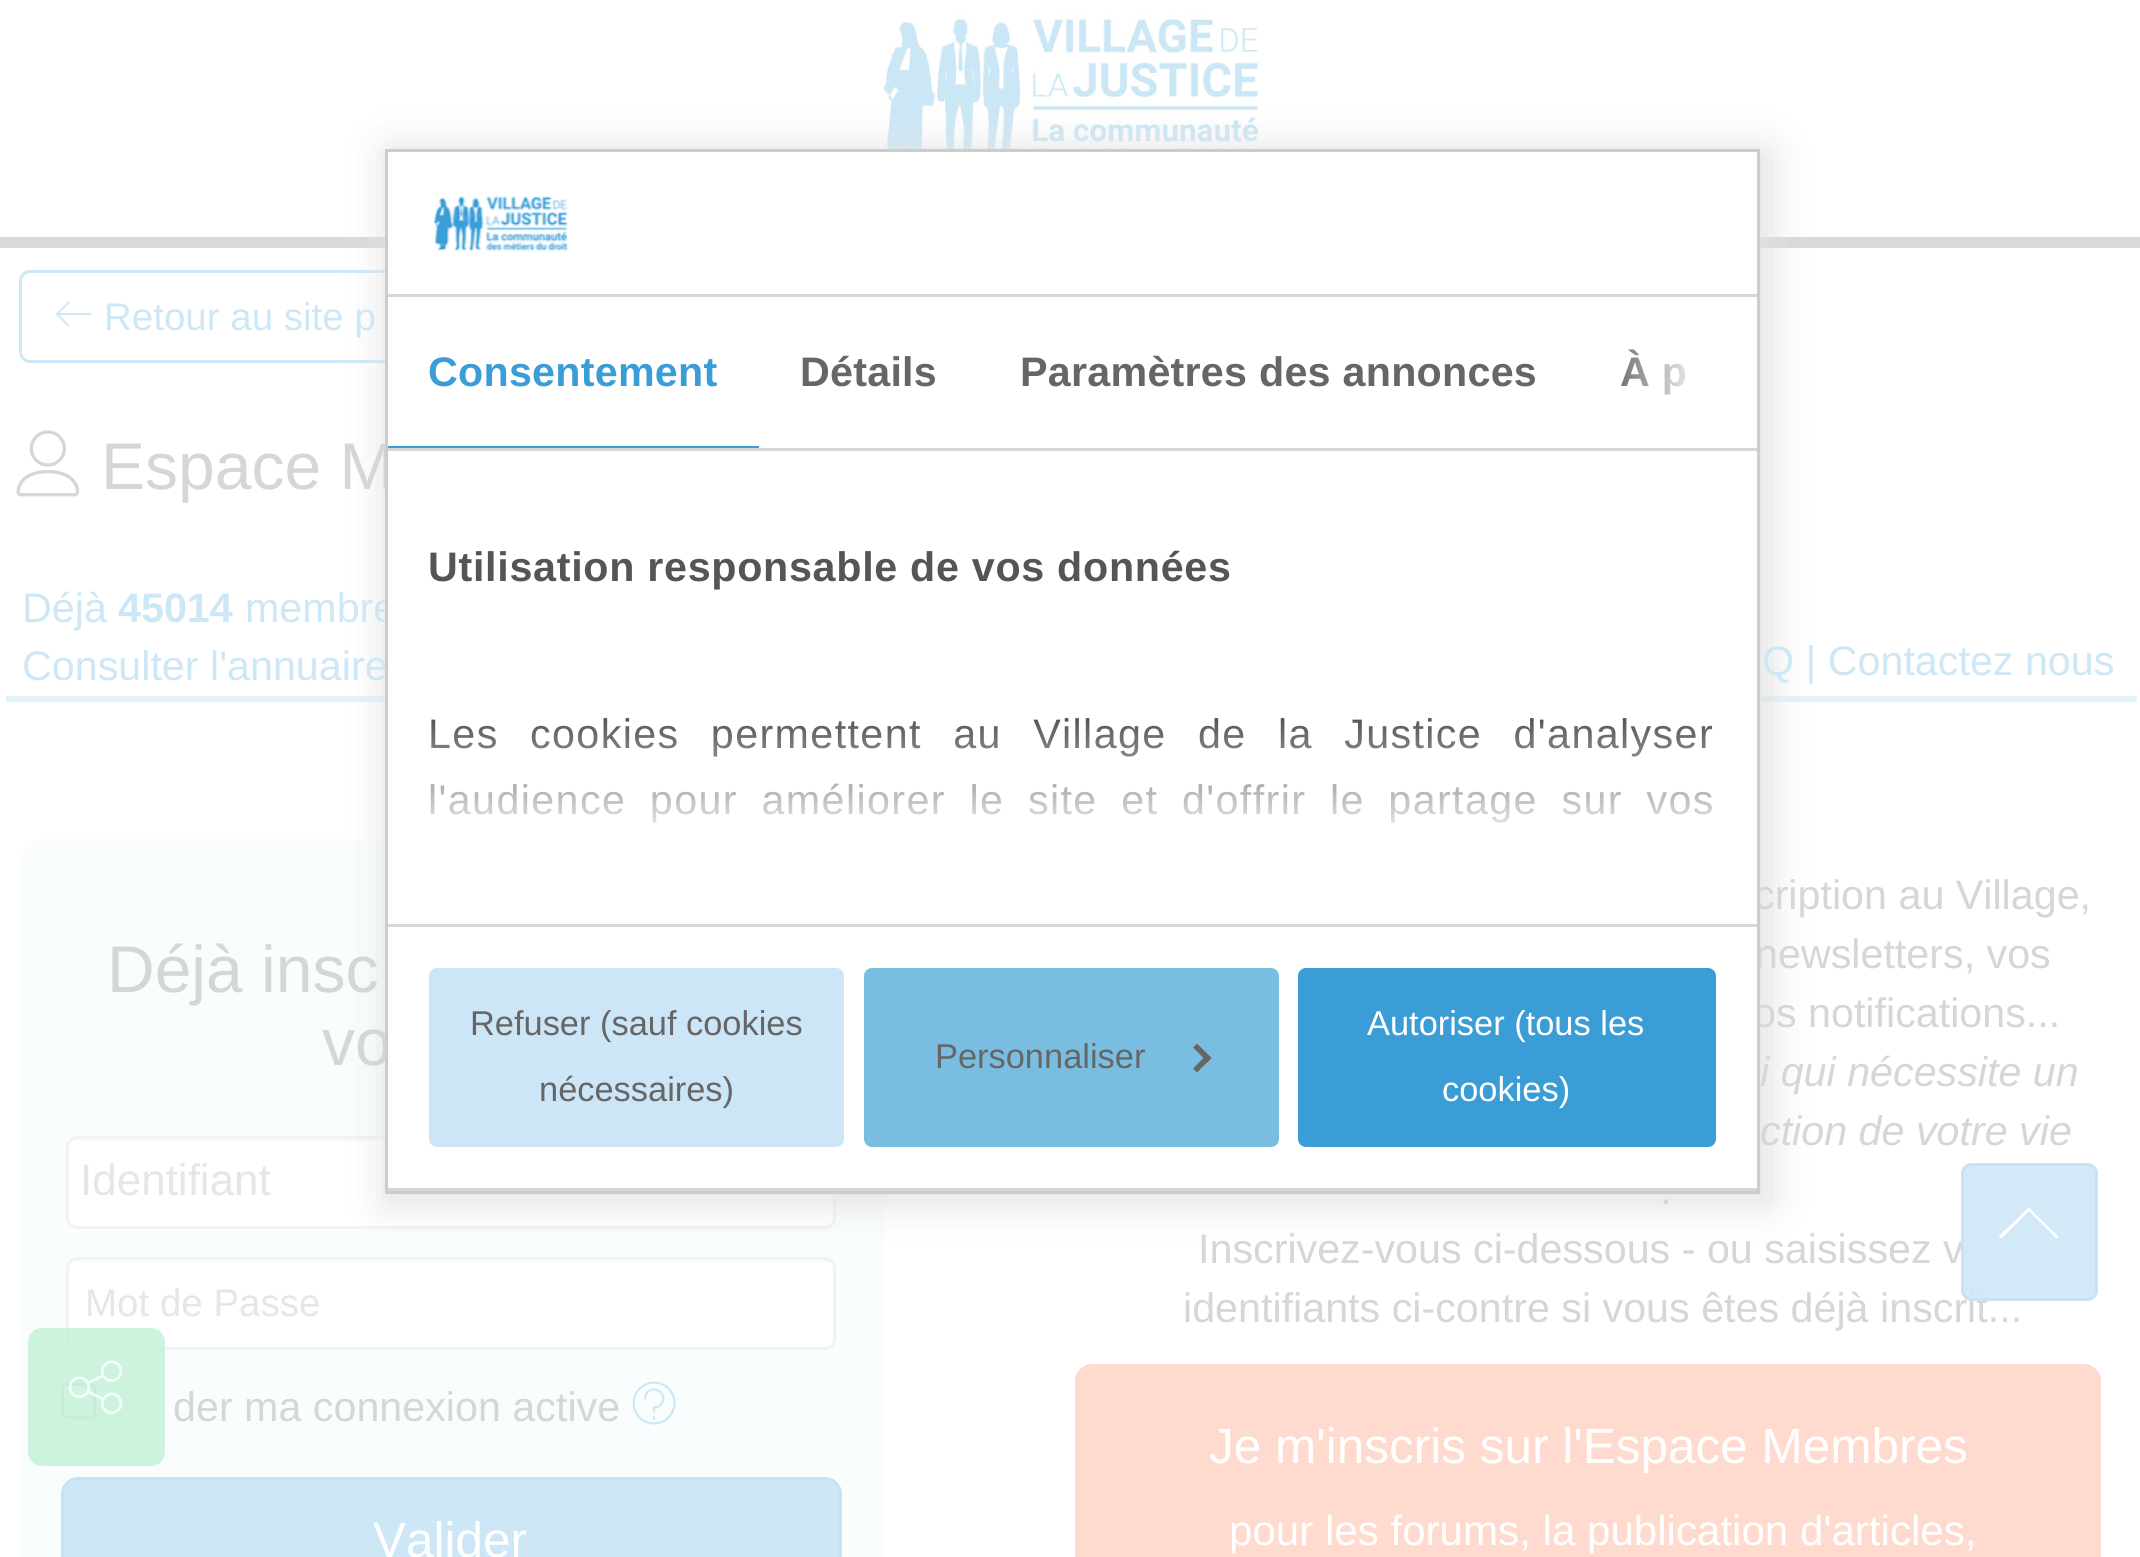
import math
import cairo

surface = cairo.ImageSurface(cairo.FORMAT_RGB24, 2140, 1557)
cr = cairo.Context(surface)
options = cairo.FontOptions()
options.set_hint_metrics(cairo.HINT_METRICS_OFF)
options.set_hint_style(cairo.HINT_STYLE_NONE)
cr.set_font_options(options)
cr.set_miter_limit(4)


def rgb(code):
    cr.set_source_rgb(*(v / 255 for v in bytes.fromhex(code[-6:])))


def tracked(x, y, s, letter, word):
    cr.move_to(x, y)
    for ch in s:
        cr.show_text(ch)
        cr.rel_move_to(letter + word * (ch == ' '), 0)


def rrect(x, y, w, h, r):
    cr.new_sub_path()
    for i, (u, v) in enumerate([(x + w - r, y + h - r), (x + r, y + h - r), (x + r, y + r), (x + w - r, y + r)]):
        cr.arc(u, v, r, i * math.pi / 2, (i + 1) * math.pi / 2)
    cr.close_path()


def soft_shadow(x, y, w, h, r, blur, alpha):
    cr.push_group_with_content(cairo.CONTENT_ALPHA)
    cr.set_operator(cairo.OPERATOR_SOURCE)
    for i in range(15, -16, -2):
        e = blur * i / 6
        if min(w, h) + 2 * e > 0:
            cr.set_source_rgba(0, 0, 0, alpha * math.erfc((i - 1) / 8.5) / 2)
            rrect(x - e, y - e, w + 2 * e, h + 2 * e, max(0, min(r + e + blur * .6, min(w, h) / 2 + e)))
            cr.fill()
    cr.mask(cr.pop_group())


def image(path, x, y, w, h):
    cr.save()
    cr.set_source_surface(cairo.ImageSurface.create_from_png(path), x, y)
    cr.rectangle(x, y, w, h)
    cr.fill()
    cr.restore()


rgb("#ffffff")
cr.paint()
image("img/1.png", 883, 14, 379, 135)
rgb("#d9d9d9")
cr.rectangle(0, 237, 2140, 11)
cr.fill()
rrect(20.5, 271.5, 470, 90, 9.5)
rgb("#cee7f6")
cr.set_line_width(3)
cr.stroke()
image("img/2.png", 56, 301, 36, 26)
rgb("#e3f2fb")
cr.rectangle(6, 696, 2131, 6)
cr.fill()
image("img/3.png", 16, 430, 64, 67)
rgb("#fafdfe")
rrect(19, 839, 864, 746, 28)
cr.fill()
rgb("#ffffff")
rrect(66, 1136, 770, 93, 11)
cr.fill()
rgb("#fafafa")
cr.new_path()
cr.move_to(77, 1141)
cr.line_to(825, 1141)
cr.curve_to(830, 1141, 833, 1145, 833, 1150)
cr.line_to(833, 1147)
cr.curve_to(833, 1143, 829, 1139, 825, 1139)
cr.line_to(77, 1139)
cr.curve_to(73, 1139, 69, 1143, 69, 1147)
cr.line_to(69, 1150)
cr.curve_to(69, 1145, 72, 1141, 77, 1141)
cr.close_path()
cr.fill()
rrect(67.5, 1137.5, 767, 90, 9.5)
rgb("#f2f2f2")
cr.stroke()
rgb("#ffffff")
rrect(66, 1257, 770, 93, 11)
cr.fill()
rgb("#fafafa")
cr.new_path()
cr.move_to(77, 1262)
cr.line_to(825, 1262)
cr.curve_to(830, 1262, 833, 1266, 833, 1270)
cr.curve_to(833, 1265, 831, 1260, 825, 1260)
cr.line_to(77, 1260)
cr.curve_to(71, 1260, 69, 1265, 69, 1270)
cr.curve_to(69, 1266, 72, 1262, 77, 1262)
cr.close_path()
cr.fill()
rrect(67.5, 1258.5, 767, 90, 9.5)
rgb("#f2f2f2")
cr.stroke()
rgb("#ffffff")
rrect(62.5, 1384.5, 32, 33, 4.5)
cr.fill_preserve()
rgb("#dddddd")
cr.stroke()
image("img/4.png", 632, 1381, 44, 44)
rgb("#cee7f6")
rrect(62.5, 1478.5, 778, 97, 15.5)
cr.fill_preserve()
rgb("#c6e2f3")
cr.stroke()
rgb("#ffdace")
rrect(1076.5, 1365.5, 1023, 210, 15.5)
cr.fill_preserve()
cr.stroke()
cr.set_source_rgba(0.757, 0.941, 0.843, 0.8)
rrect(28, 1328, 137, 138, 14)
cr.fill()
image("img/5.png", 68, 1360, 55, 55)
rgb("#e2e2e2")
soft_shadow(385, 149, 1386, 1056, 0, 19, 1)
cr.select_font_face("Liberation Sans")
cr.set_font_size(38.5)
rgb("#cee7f6")
cr.move_to(104, 330)
cr.show_text("Retour au site p")
cr.set_font_size(66)
rgb("#d5d6d6")
cr.move_to(101, 489)
cr.show_text("Espace M")
cr.set_font_size(41.25)
rgb("#cee7f6")
cr.move_to(22, 622)
cr.show_text("Déjà")
cr.select_font_face("Liberation Sans", cairo.FONT_SLANT_NORMAL, cairo.FONT_WEIGHT_BOLD)
cr.move_to(118, 622)
cr.show_text("45014")
cr.select_font_face("Liberation Sans")
for x, y, s in [
    (245, 622, "membre"),
    (22, 680, "Consulter l'annuaire"),
    (1762, 675, "Q | Contactez nous"),
]:
    cr.move_to(x, y)
    cr.show_text(s)
cr.set_font_size(66)
rgb("#d5d6d6")
cr.move_to(107, 992)
cr.show_text("Déjà insc")
cr.move_to(322, 1065)
cr.show_text("vo")
cr.set_font_size(44)
rgb("#e6e6e6")
cr.move_to(80, 1195)
cr.show_text("Identifiant")
cr.set_font_size(38.5)
cr.move_to(85, 1316)
cr.show_text("Mot de Passe")
cr.set_font_size(41.25)
rgb("#d5d6d6")
cr.move_to(173, 1421)
cr.show_text("der ma connexion active")
cr.set_font_size(49.5)
rgb("#ffffff")
cr.move_to(373, 1557)
cr.show_text("Valider")
cr.set_font_size(41.25)
rgb("#d5d6d6")
for x, y, s in [
    (1754, 909, "cription au Village,"),
    (1755, 968, "newsletters, vos"),
    (1753, 1027, "os notifications..."),
]:
    cr.move_to(x, y)
    cr.show_text(s)
cr.select_font_face("Liberation Sans", cairo.FONT_SLANT_ITALIC)
cr.move_to(1760, 1086)
cr.show_text("i qui nécessite un")
cr.move_to(1760, 1145)
cr.show_text("ction de votre vie")
cr.select_font_face("Liberation Sans")
for x, y, s in [
    (1660, 1204, "."),
    (1198, 1263, "Inscrivez-vous ci-dessous - ou saisissez v"),
    (1183, 1322, "identifiants ci-contre si vous êtes déjà inscrit..."),
]:
    cr.move_to(x, y)
    cr.show_text(s)
cr.set_font_size(49.5)
rgb("#ffffff")
cr.move_to(1209, 1463)
cr.show_text("Je m'inscris sur l'Espace Membres")
cr.set_font_size(42.1)
cr.move_to(1229, 1545)
cr.show_text("pour les forums, la publication d'articles,")
cr.set_source_rgba(0.808, 0.906, 0.965, 0.9)
rrect(1961, 1163, 137, 138, 11)
cr.fill()
rrect(1962.5, 1164.5, 134, 135, 9.5)
cr.set_source_rgba(0.776, 0.886, 0.953, 0.9)
cr.stroke()
rgb("#ffffff")
cr.new_path()
cr.move_to(1999, 1237)
cr.curve_to(1999, 1238, 2001, 1239, 2002, 1238)
cr.line_to(2029, 1211)
cr.line_to(2056, 1238)
cr.curve_to(2057, 1239, 2059, 1237, 2058, 1236)
cr.line_to(2034, 1213)
cr.curve_to(2028, 1206, 2030, 1206, 2023, 1213)
cr.line_to(2014, 1222)
cr.curve_to(2012, 1224, 1999, 1235, 1999, 1237)
cr.close_path()
cr.fill()
cr.rectangle(388, 152, 1369, 1036)
cr.fill()
cr.rectangle(386.5, 150.5, 1372, 1042)
rgb("#cccccc")
cr.stroke()
rgb("#d6d6d6")
cr.rectangle(388, 294, 1369, 3)
cr.fill()
image("img/6.png", 433, 196, 135, 56)
cr.rectangle(388, 448, 1369, 3)
cr.fill()
rgb("#3b9dd6")
cr.rectangle(388, 446, 371, 2)
cr.fill()
cr.select_font_face("Liberation Sans", cairo.FONT_SLANT_NORMAL, cairo.FONT_WEIGHT_BOLD)
cr.set_font_size(41.25)
tracked(428, 386, "Consentement", 0.25, 0)
rgb("#666666")
for x, y, s in [
    (800, 386, "Détails"),
    (1020, 386, "Paramètres des annonces"),
    (1620, 386, "À p"),
]:
    tracked(x, y, s, 0.25, 0)
gradient = cairo.LinearGradient(1757, 373, 1612, 373)
gradient.add_color_stop_rgba(0, 1, 1, 1, 1)
gradient.add_color_stop_rgba(0.5, 1, 1, 1, 0.8)
gradient.add_color_stop_rgba(1, 1, 1, 1, 0)
cr.set_source(gradient)
cr.rectangle(1621, 349, 65, 46)
cr.fill()
rgb("#d6d6d6")
cr.rectangle(388, 924, 1369, 3)
cr.fill()
rgb("#555555")
tracked(428, 581, "Utilisation responsable de vos données", 0.7, 0)
cr.select_font_face("Liberation Sans")
tracked(428, 748, "Les cookies permettent au Village de la Justice d'analyser", 1.38, 18.5)
tracked(428, 814, "l'audience pour améliorer le site et d'offrir le partage sur vos", 1.38, 10.75)
gradient = cairo.LinearGradient(1055, 924, 1055, 718)
gradient.add_color_stop_rgba(0, 1, 1, 1, 1)
gradient.add_color_stop_rgba(0.5, 1, 1, 1, 0.8)
gradient.add_color_stop_rgba(1, 1, 1, 1, 0)
cr.set_source(gradient)
cr.rectangle(430, 721, 1283, 102)
cr.fill()
rgb("#d6d6d6")
cr.rectangle(388, 1188, 1369, 3)
cr.fill()
rgb("#cce6f7")
rrect(432, 971, 409, 173, 5)
cr.fill_preserve()
cr.set_line_width(6)
cr.stroke()
cr.set_font_size(34.4)
rgb("#666666")
cr.move_to(470, 1035)
cr.show_text("Refuser (sauf cookies")
cr.move_to(539, 1101)
cr.show_text("nécessaires)")
rgb("#79bee0")
rrect(867, 971, 409, 173, 5)
cr.fill_preserve()
cr.stroke()
rgb("#666666")
cr.move_to(935, 1068)
cr.show_text("Personnaliser")
cr.new_path()
cr.move_to(1197, 1043.5)
cr.line_to(1211.5, 1058)
cr.line_to(1207.5, 1062)
cr.line_to(1193, 1047.5)
cr.close_path()
cr.fill()
cr.new_path()
cr.move_to(1207.5, 1054)
cr.line_to(1211.5, 1058)
cr.line_to(1197, 1072.5)
cr.line_to(1193, 1068.5)
cr.close_path()
cr.fill()
rgb("#3b9dd6")
rrect(1301, 971, 412, 173, 5)
cr.fill_preserve()
cr.stroke()
rgb("#ffffff")
cr.move_to(1367, 1035)
cr.show_text("Autoriser (tous les")
cr.move_to(1442, 1101)
cr.show_text("cookies)")
surface.write_to_png("page.png")
